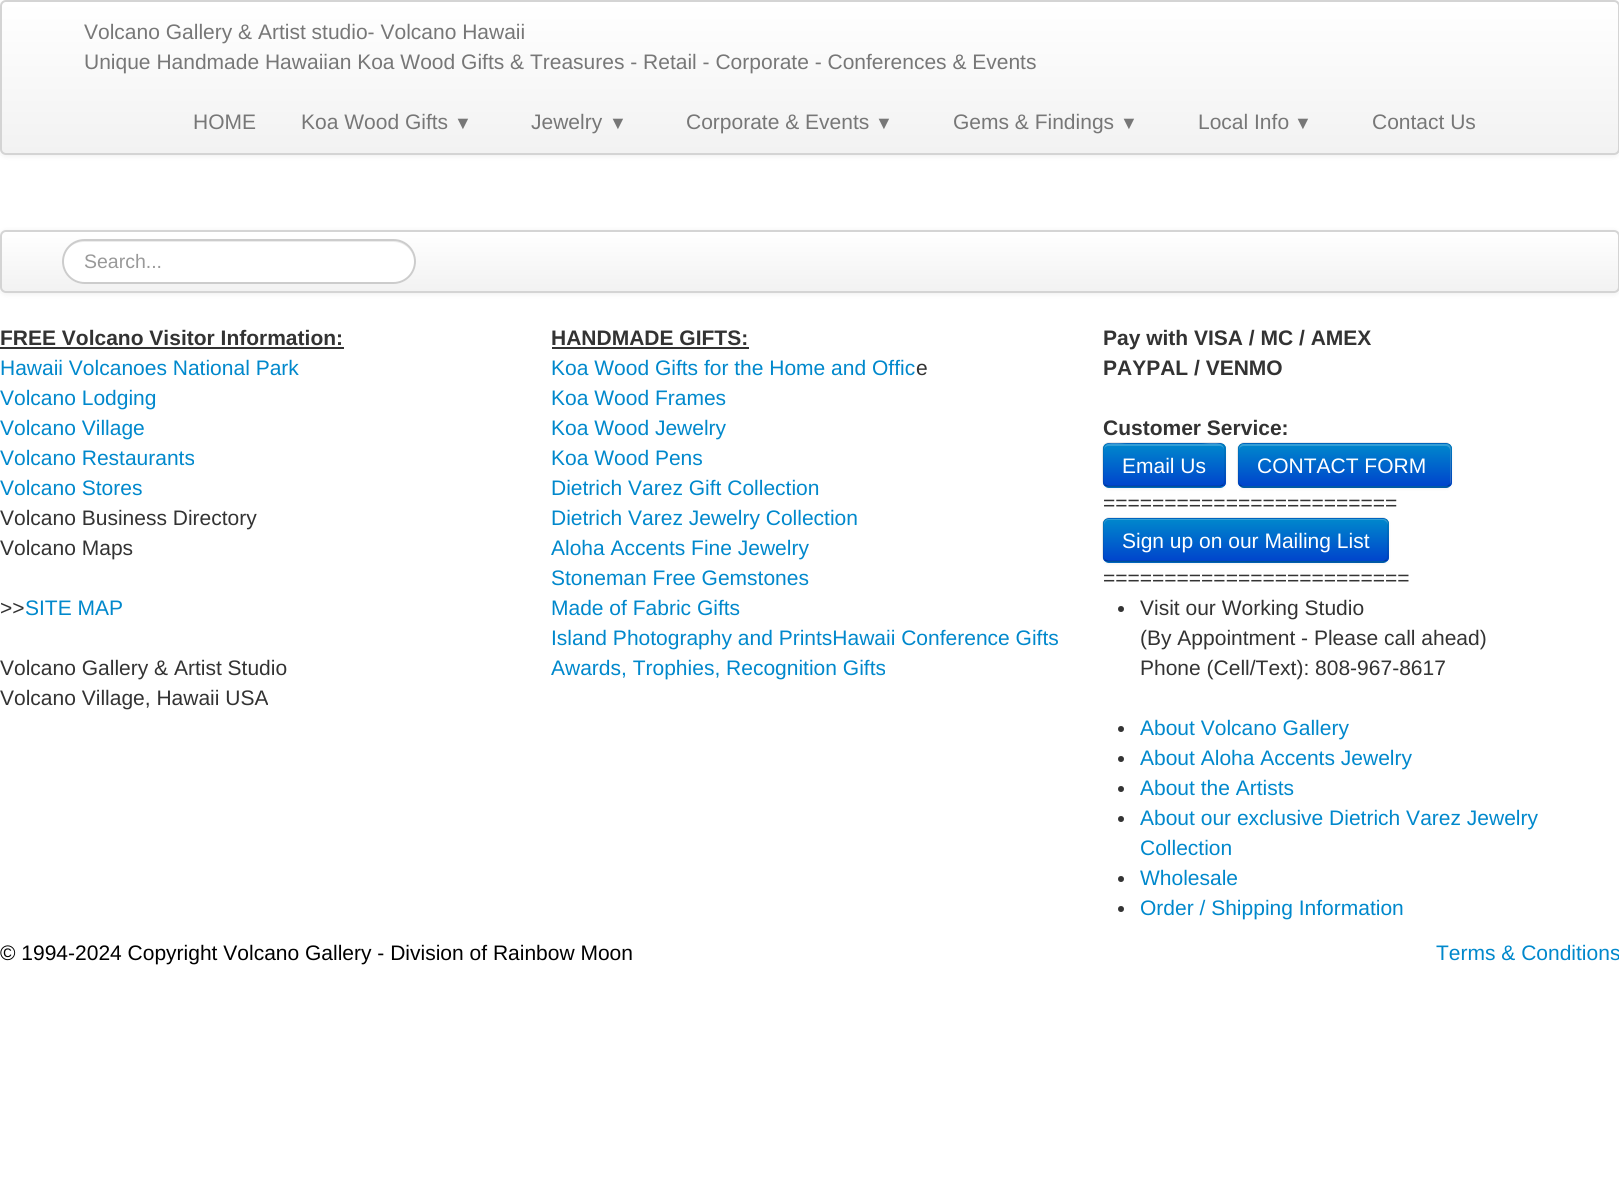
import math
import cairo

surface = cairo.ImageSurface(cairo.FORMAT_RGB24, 1619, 1186)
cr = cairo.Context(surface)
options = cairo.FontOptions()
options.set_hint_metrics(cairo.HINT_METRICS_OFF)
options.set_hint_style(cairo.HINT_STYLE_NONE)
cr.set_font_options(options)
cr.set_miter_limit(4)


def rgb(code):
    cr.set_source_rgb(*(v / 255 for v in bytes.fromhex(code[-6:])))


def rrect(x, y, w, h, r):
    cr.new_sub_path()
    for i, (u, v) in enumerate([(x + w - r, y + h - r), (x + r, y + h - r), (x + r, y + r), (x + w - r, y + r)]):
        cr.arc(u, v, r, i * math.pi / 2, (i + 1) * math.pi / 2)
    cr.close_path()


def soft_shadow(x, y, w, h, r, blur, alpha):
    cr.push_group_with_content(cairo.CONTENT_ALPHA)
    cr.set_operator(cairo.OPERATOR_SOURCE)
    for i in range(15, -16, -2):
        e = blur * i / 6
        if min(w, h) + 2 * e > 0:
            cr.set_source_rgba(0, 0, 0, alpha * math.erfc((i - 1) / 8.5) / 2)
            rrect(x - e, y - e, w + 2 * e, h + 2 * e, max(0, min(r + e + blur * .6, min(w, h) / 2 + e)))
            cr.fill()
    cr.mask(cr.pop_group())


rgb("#ffffff")
cr.paint()
rgb("#000000")
soft_shadow(0, 2, 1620, 154, 6, 3, 0.07)
cr.save()
rrect(0, 0, 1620, 155, 6)
cr.clip()
gradient = cairo.LinearGradient(810, 1.5, 810, 153)
gradient.add_color_stop_rgba(0, 1, 1, 1, 1)
gradient.add_color_stop_rgba(1, 0.949, 0.949, 0.949, 1)
cr.set_source(gradient)
cr.rectangle(0, 2, 1619, 151)
cr.fill()
cr.restore()
rrect(1, 1, 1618, 153, 5)
rgb("#d4d4d4")
cr.stroke()
rgb("#000000")
soft_shadow(0, 231, 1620, 63, 6, 3, 0.07)
cr.save()
rrect(0, 230, 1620, 63, 6)
cr.clip()
gradient = cairo.LinearGradient(810, 231, 810, 291)
gradient.add_color_stop_rgba(0, 1, 1, 1, 1)
gradient.add_color_stop_rgba(1, 0.949, 0.949, 0.949, 1)
cr.set_source(gradient)
cr.rectangle(0, 231, 1619, 60)
cr.fill()
cr.restore()
rrect(1, 231, 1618, 61, 5)
rgb("#d4d4d4")
cr.stroke()
rgb("#ffffff")
rrect(62, 239, 354, 45, 22.5)
cr.fill()
rgb("#ececec")
cr.new_path()
cr.move_to(84, 242)
cr.line_to(393, 242)
cr.curve_to(405, 242, 414, 251, 414, 262)
cr.curve_to(414, 250, 405, 240, 393, 240)
cr.line_to(84, 240)
cr.curve_to(72, 240, 63, 250, 63, 262)
cr.curve_to(63, 251, 72, 242, 84, 242)
cr.close_path()
cr.fill()
rrect(63, 240, 352, 43, 21.5)
rgb("#cccccc")
cr.stroke()
rgb("#333333")
cr.rectangle(0, 347, 344, 2)
cr.fill()
cr.rectangle(552, 347, 197, 2)
cr.fill()
rgb("#000000")
soft_shadow(1103, 444, 123, 45, 6, 1.5, 0.05)
rgb("#006dcc")
rrect(1103, 443, 123, 45, 6)
cr.fill()
cr.save()
rrect(1103, 443, 123, 45, 6)
cr.clip()
gradient = cairo.LinearGradient(1164, 444, 1164, 486)
gradient.add_color_stop_rgba(0, 0, 0.533, 0.8, 1)
gradient.add_color_stop_rgba(1, 0, 0.267, 0.8, 1)
cr.set_source(gradient)
cr.rectangle(1103, 444, 123, 42)
cr.fill()
cr.restore()
cr.set_source_rgba(1, 1, 1, 0.2)
cr.new_path()
cr.move_to(1108, 446)
cr.line_to(1220, 446)
cr.curve_to(1222, 446, 1224, 448, 1224, 450)
cr.curve_to(1224, 439, 1205, 444, 1201, 444)
cr.line_to(1127, 444)
cr.curve_to(1123, 444, 1104, 439, 1104, 450)
cr.curve_to(1104, 448, 1106, 446, 1108, 446)
cr.close_path()
cr.fill()
cr.new_path()
cr.move_to(1223, 485)
cr.line_to(1220, 486.5)
cr.line_to(1108, 486.5)
cr.line_to(1105, 485)
cr.set_source_rgba(0, 0, 0, 0.25)
cr.set_line_width(1.5)
cr.stroke()
cr.new_path()
cr.move_to(1105, 485)
cr.curve_to(1102.5, 483, 1103, 479, 1103, 476)
cr.line_to(1103, 465)
cr.curve_to(1103, 439.5, 1100, 443, 1127, 443)
cr.line_to(1201, 443)
cr.curve_to(1228, 443, 1225, 439.5, 1225, 465)
cr.line_to(1225, 476)
cr.curve_to(1225, 479, 1225.5, 483, 1223, 485)
cr.set_source_rgba(0, 0, 0, 0.1)
cr.stroke()
rgb("#000000")
soft_shadow(1238, 444, 214, 45, 6, 1.5, 0.05)
rgb("#006dcc")
rrect(1238, 443, 214, 45, 6)
cr.fill()
cr.save()
rrect(1238, 443, 214, 45, 6)
cr.clip()
gradient = cairo.LinearGradient(1345, 444, 1345, 486)
gradient.add_color_stop_rgba(0, 0, 0.533, 0.8, 1)
gradient.add_color_stop_rgba(1, 0, 0.267, 0.8, 1)
cr.set_source(gradient)
cr.rectangle(1238, 444, 214, 42)
cr.fill()
cr.restore()
cr.set_source_rgba(1, 1, 1, 0.2)
cr.new_path()
cr.move_to(1244, 446)
cr.line_to(1446, 446)
cr.curve_to(1448, 446, 1450, 448, 1450, 450)
cr.line_to(1450, 484)
cr.curve_to(1451, 483, 1451, 482, 1451, 481)
cr.line_to(1451, 449)
cr.curve_to(1451, 446, 1449, 444, 1446, 444)
cr.line_to(1244, 444)
cr.curve_to(1241, 444, 1239, 446, 1239, 449)
cr.line_to(1239, 450)
cr.curve_to(1239, 448, 1241, 446, 1244, 446)
cr.close_path()
cr.fill()
cr.new_path()
cr.move_to(1449.5, 485)
cr.curve_to(1448.5, 486, 1447.5, 487, 1446, 487)
cr.line_to(1243.5, 487)
cr.curve_to(1242, 487, 1241, 486, 1240, 485)
cr.set_source_rgba(0, 0, 0, 0.25)
cr.stroke()
cr.new_path()
cr.move_to(1240, 485)
cr.curve_to(1239, 484, 1238, 483, 1238, 481.5)
cr.line_to(1238, 448.5)
cr.curve_to(1238, 447, 1239, 446, 1240, 445)
cr.curve_to(1241, 444, 1242, 443, 1243.5, 443)
cr.line_to(1446, 443)
cr.curve_to(1447.5, 443, 1448.5, 444, 1449.5, 445)
cr.curve_to(1450.5, 446, 1451, 447, 1451, 448.5)
cr.line_to(1451, 481.5)
cr.curve_to(1451, 483, 1450.5, 484, 1449.5, 485)
cr.set_source_rgba(0, 0, 0, 0.1)
cr.stroke()
rgb("#000000")
soft_shadow(1103, 519, 286, 45, 6, 1.5, 0.05)
rgb("#006dcc")
rrect(1103, 518, 286, 45, 6)
cr.fill()
cr.save()
rrect(1103, 518, 286, 45, 6)
cr.clip()
gradient = cairo.LinearGradient(1246, 519, 1246, 561)
gradient.add_color_stop_rgba(0, 0, 0.533, 0.8, 1)
gradient.add_color_stop_rgba(1, 0, 0.267, 0.8, 1)
cr.set_source(gradient)
cr.rectangle(1103, 519, 286, 42)
cr.fill()
cr.restore()
cr.set_source_rgba(1, 1, 1, 0.2)
cr.new_path()
cr.move_to(1108, 520)
cr.line_to(1383, 520)
cr.curve_to(1385, 520, 1388, 523, 1388, 525)
cr.line_to(1388, 524)
cr.curve_to(1388, 521, 1386, 519, 1383, 519)
cr.line_to(1109, 519)
cr.curve_to(1106, 519, 1104, 521, 1104, 524)
cr.line_to(1104, 525)
cr.curve_to(1104, 523, 1106, 520, 1108, 520)
cr.close_path()
cr.fill()
cr.new_path()
cr.move_to(1386.5, 560)
cr.curve_to(1385.5, 561, 1384.5, 561.5, 1383, 562)
cr.line_to(1108, 561.5)
cr.line_to(1105, 560)
cr.set_source_rgba(0, 0, 0, 0.25)
cr.stroke()
cr.new_path()
cr.move_to(1105, 560)
cr.curve_to(1104, 559, 1103, 558, 1103, 556.5)
cr.line_to(1103, 523.5)
cr.curve_to(1103, 522, 1104, 521, 1105, 520)
cr.curve_to(1106, 519, 1107, 518, 1108.5, 518)
cr.line_to(1383, 518)
cr.curve_to(1384.5, 518, 1385.5, 519, 1386.5, 520)
cr.curve_to(1387.5, 521, 1388, 522, 1388, 523.5)
cr.line_to(1388, 556.5)
cr.curve_to(1388, 558, 1387.5, 559, 1386.5, 560)
cr.set_source_rgba(0, 0, 0, 0.1)
cr.stroke()
rgb("#333333")
cr.arc(1121, 609, 3, 0, 2 * math.pi)
cr.fill()
cr.arc(1121, 729, 3, 0, 2 * math.pi)
cr.fill()
cr.arc(1121, 759, 3, 0, 2 * math.pi)
cr.fill()
cr.arc(1121, 789, 3, 0, 2 * math.pi)
cr.fill()
cr.arc(1121, 819, 3, 0, 2 * math.pi)
cr.fill()
cr.arc(1121, 879, 3, 0, 2 * math.pi)
cr.fill()
cr.arc(1121, 909, 3, 0, 2 * math.pi)
cr.fill()
cr.select_font_face("Liberation Sans")
cr.set_font_size(21)
rgb("#777777")
for x, y, s in [
    (84, 39, "Volcano Gallery & Artist studio- Volcano Hawaii"),
    (84, 69, "Unique Handmade Hawaiian Koa Wood Gifts & Treasures - Retail - Corporate - Conferences & Events"),
    (193, 129, "HOME"),
    (301, 129, "Koa Wood Gifts"),
]:
    cr.move_to(x, y)
    cr.show_text(s)
cr.set_font_size(18)
cr.move_to(454, 129)
cr.show_text("▼")
cr.set_font_size(21)
cr.move_to(531, 129)
cr.show_text("Jewelry")
cr.set_font_size(18)
cr.move_to(609, 129)
cr.show_text("▼")
cr.set_font_size(21)
cr.move_to(686, 129)
cr.show_text("Corporate & Events")
cr.set_font_size(18)
cr.move_to(875, 129)
cr.show_text("▼")
cr.set_font_size(21)
cr.move_to(953, 129)
cr.show_text("Gems & Findings")
cr.set_font_size(18)
cr.move_to(1120, 129)
cr.show_text("▼")
cr.set_font_size(21)
cr.move_to(1198, 129)
cr.show_text("Local Info")
cr.set_font_size(18)
cr.move_to(1294, 129)
cr.show_text("▼")
cr.set_font_size(21)
cr.move_to(1372, 129)
cr.show_text("Contact Us")
cr.set_font_size(19.5)
rgb("#999999")
cr.move_to(84, 268)
cr.show_text("Search...")
cr.select_font_face("Liberation Sans", cairo.FONT_SLANT_NORMAL, cairo.FONT_WEIGHT_BOLD)
cr.set_font_size(21)
rgb("#333333")
cr.move_to(0, 345)
cr.show_text("FREE Volcano Visitor Information:")
cr.select_font_face("Liberation Sans")
rgb("#0088cc")
for x, y, s in [
    (0, 375, "Hawaii Volcanoes National Park"),
    (0, 405, "Volcano Lodging"),
    (0, 435, "Volcano Village"),
    (0, 465, "Volcano Restaurants"),
    (0, 495, "Volcano Stores"),
]:
    cr.move_to(x, y)
    cr.show_text(s)
rgb("#333333")
for x, y, s in [
    (0, 525, "Volcano Business Directory"),
    (0, 555, "Volcano Maps"),
    (0, 615, ">>"),
]:
    cr.move_to(x, y)
    cr.show_text(s)
rgb("#0088cc")
cr.move_to(25, 615)
cr.show_text("SITE MAP")
rgb("#333333")
cr.move_to(0, 675)
cr.show_text("Volcano Gallery & Artist Studio")
cr.move_to(0, 705)
cr.show_text("Volcano Village, Hawaii USA")
cr.select_font_face("Liberation Sans", cairo.FONT_SLANT_NORMAL, cairo.FONT_WEIGHT_BOLD)
cr.move_to(551, 345)
cr.show_text("HANDMADE GIFTS:")
cr.select_font_face("Liberation Sans")
rgb("#0088cc")
cr.move_to(551, 375)
cr.show_text("Koa Wood Gifts for the Home and Offic")
rgb("#333333")
cr.move_to(916, 375)
cr.show_text("e")
rgb("#0088cc")
for x, y, s in [
    (551, 405, "Koa Wood Frames"),
    (551, 435, "Koa Wood Jewelry"),
    (551, 465, "Koa Wood Pens"),
    (551, 495, "Dietrich Varez Gift Collection"),
    (551, 525, "Dietrich Varez Jewelry Collection"),
    (551, 555, "Aloha Accents Fine Jewelry"),
    (551, 585, "Stoneman Free Gemstones"),
    (551, 615, "Made of Fabric Gifts"),
    (551, 645, "Island Photography and PrintsHawaii Conference Gifts"),
    (551, 675, "Awards, Trophies, Recognition Gifts"),
]:
    cr.move_to(x, y)
    cr.show_text(s)
cr.select_font_face("Liberation Sans", cairo.FONT_SLANT_NORMAL, cairo.FONT_WEIGHT_BOLD)
rgb("#333333")
for x, y, s in [
    (1103, 345, "Pay with VISA / MC / AMEX"),
    (1103, 375, "PAYPAL / VENMO"),
    (1103, 435, "Customer Service:"),
]:
    cr.move_to(x, y)
    cr.show_text(s)
cr.select_font_face("Liberation Sans")
rgb("#ffffff")
cr.move_to(1122, 473)
cr.show_text("Email Us")
cr.move_to(1257, 473)
cr.show_text("CONTACT FORM")
rgb("#333333")
cr.move_to(1103, 510)
cr.show_text("========================")
rgb("#ffffff")
cr.move_to(1122, 548)
cr.show_text("Sign up on our Mailing List")
rgb("#333333")
for x, y, s in [
    (1103, 585, "========================="),
    (1140, 615, "Visit our Working Studio"),
    (1140, 645, "(By Appointment - Please call ahead)"),
    (1140, 675, "Phone (Cell/Text): 808-967-8617"),
]:
    cr.move_to(x, y)
    cr.show_text(s)
rgb("#0088cc")
for x, y, s in [
    (1140, 735, "About Volcano Gallery"),
    (1140, 765, "About Aloha Accents Jewelry"),
    (1140, 795, "About the Artists"),
    (1140, 825, "About our exclusive Dietrich Varez Jewelry"),
    (1140, 855, "Collection"),
    (1140, 885, "Wholesale"),
    (1140, 915, "Order / Shipping Information"),
]:
    cr.move_to(x, y)
    cr.show_text(s)
rgb("#000000")
cr.move_to(0, 960)
cr.show_text("© 1994-2024 Copyright Volcano Gallery - Division of Rainbow Moon")
rgb("#0088cc")
cr.move_to(1436, 960)
cr.show_text("Terms & Conditions")
surface.write_to_png("page.png")
